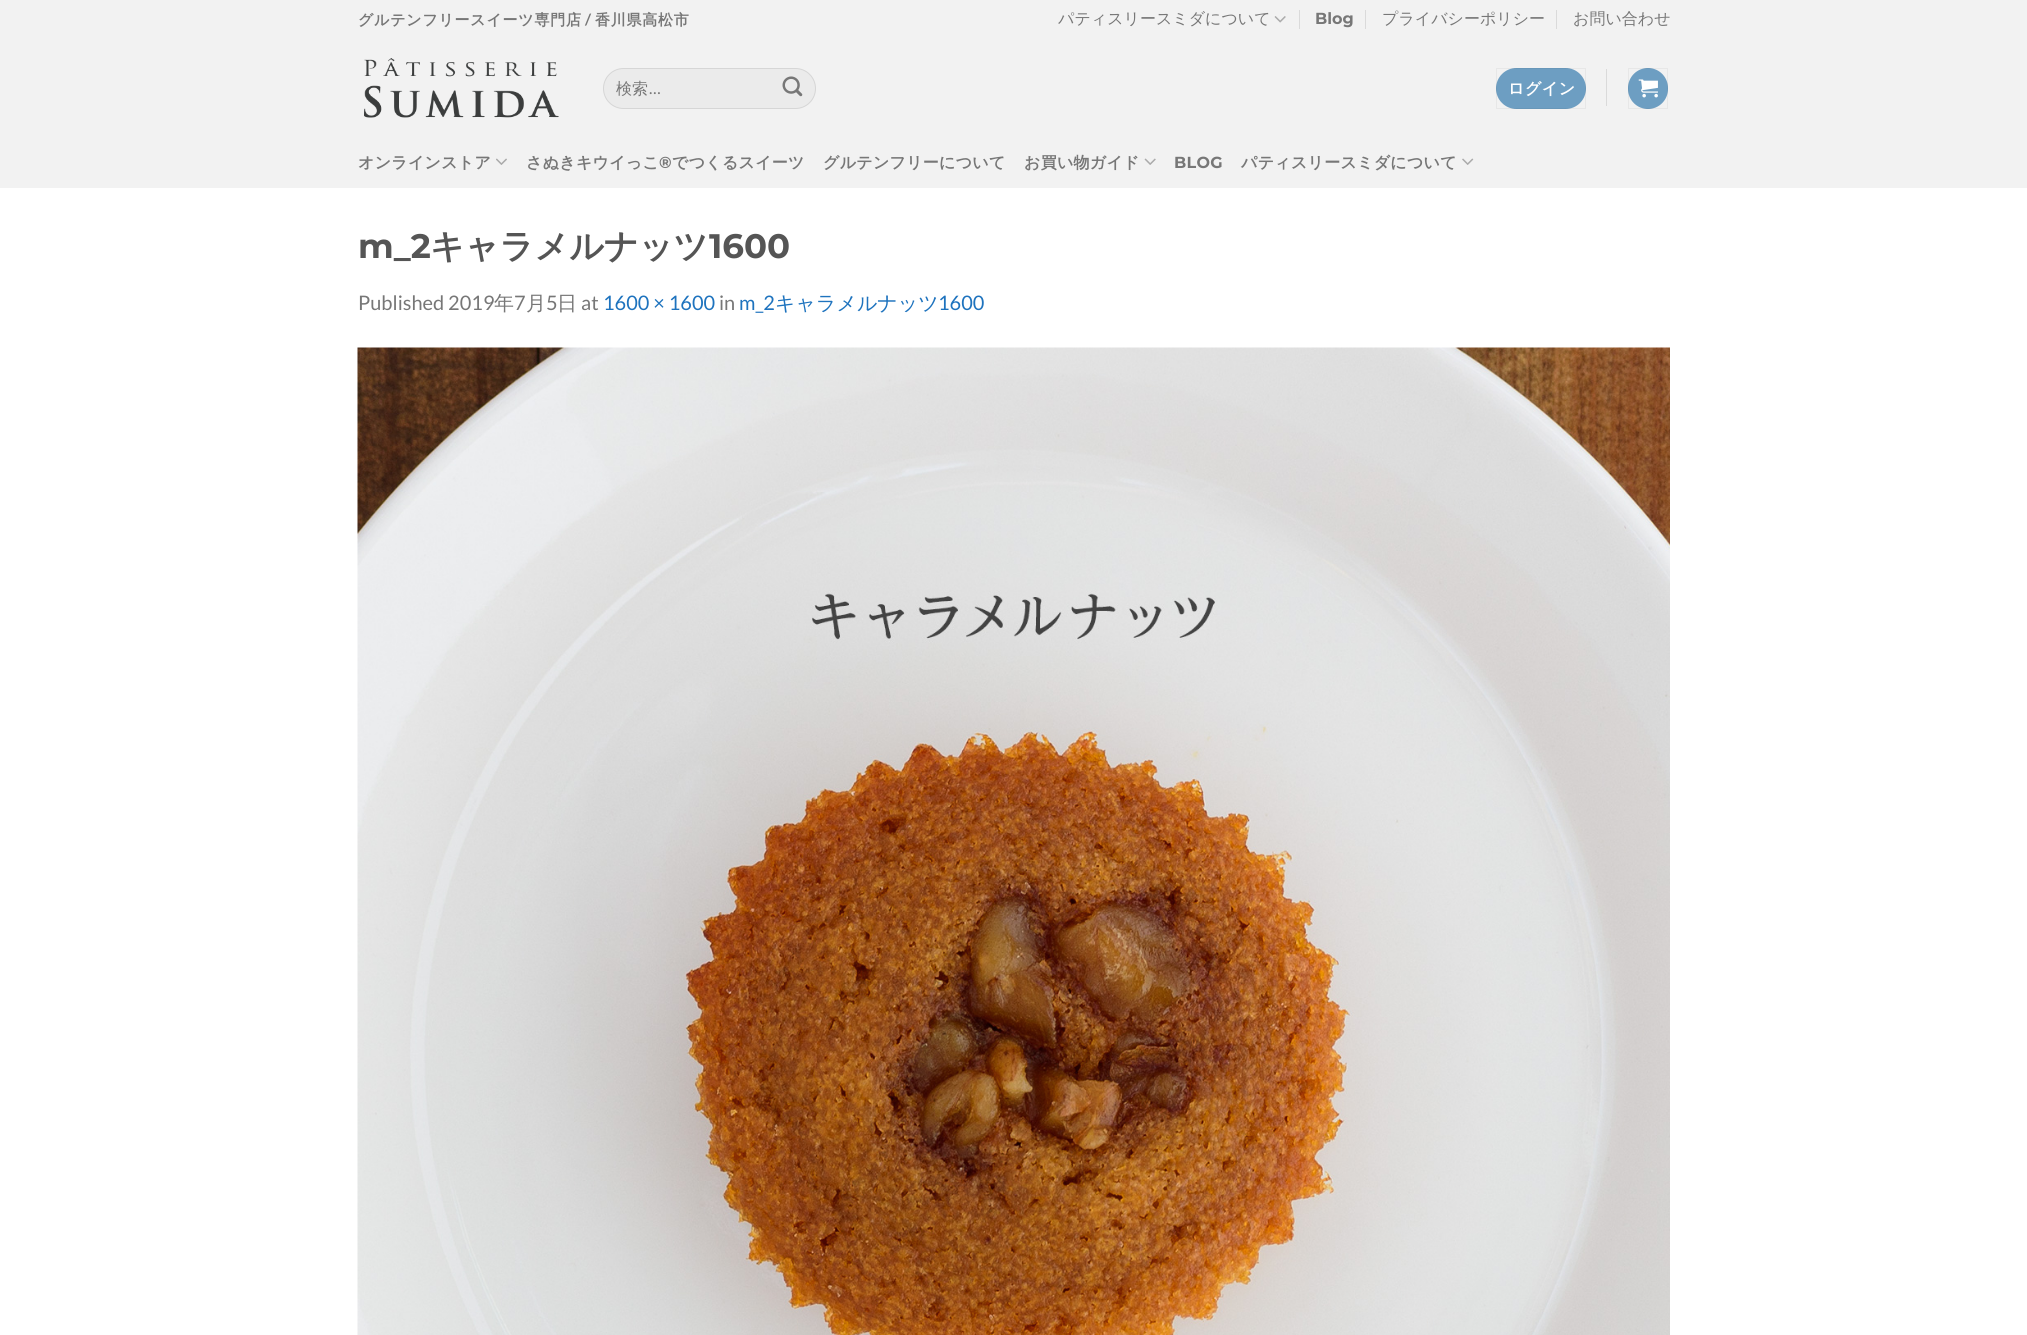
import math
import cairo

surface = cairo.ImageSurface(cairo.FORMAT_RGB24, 2027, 1335)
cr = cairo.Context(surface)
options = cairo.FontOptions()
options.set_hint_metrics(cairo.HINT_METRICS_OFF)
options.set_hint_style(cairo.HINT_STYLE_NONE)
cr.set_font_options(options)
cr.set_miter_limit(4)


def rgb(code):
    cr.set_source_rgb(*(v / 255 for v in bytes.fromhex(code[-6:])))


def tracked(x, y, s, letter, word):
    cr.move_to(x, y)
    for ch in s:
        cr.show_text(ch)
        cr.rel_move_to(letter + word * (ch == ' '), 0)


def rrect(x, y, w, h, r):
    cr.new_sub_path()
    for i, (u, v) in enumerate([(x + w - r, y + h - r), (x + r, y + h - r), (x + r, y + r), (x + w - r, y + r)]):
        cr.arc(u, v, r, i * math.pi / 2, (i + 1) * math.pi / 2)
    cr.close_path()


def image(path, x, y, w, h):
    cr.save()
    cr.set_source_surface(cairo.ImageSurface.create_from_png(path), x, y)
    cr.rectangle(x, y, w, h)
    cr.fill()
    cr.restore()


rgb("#ffffff")
cr.paint()
rgb("#f2f2f2")
cr.rectangle(0, 0, 2027, 188)
cr.fill()
image("img/1.png", 1274, 16, 12, 7)
for x, y, w, h, color in [
    (1299, 10, 1, 19, "#dadada"),
    (1365, 10, 1, 19, "#dadada"),
    (1556, 10, 1, 19, "#dadada"),
]:
    rgb(color)
    cr.rectangle(x, y, w, h)
    cr.fill()
image("img/2.png", 364, 58, 195, 60)
rgb("#ebebeb")
rrect(603, 68, 213, 41, 20.5)
cr.fill()
rrect(603.5, 68.5, 212, 40, 20)
cr.set_source_rgba(0, 0, 0, 0.09)
cr.set_line_width(1)
cr.stroke()
image("img/3.png", 782, 76, 21, 21)
rgb("#6d9ec2")
rrect(1496, 68, 90, 41, 20.5)
cr.fill()
cr.rectangle(1496.5, 68.5, 89, 40)
cr.set_source_rgba(0, 0, 0, 0.05)
cr.stroke()
rgb("#dadada")
cr.rectangle(1606, 69, 1, 37)
cr.fill()
rgb("#6d9ec2")
rrect(1628, 68, 40, 41, 20)
cr.fill()
cr.rectangle(1628.5, 68.5, 39, 40)
cr.set_source_rgba(0, 0, 0, 0.05)
cr.stroke()
image("img/4.png", 1638, 79, 20, 19)
image("img/5.png", 496, 158, 11, 7)
image("img/6.png", 1144, 158, 12, 7)
image("img/7.png", 1462, 158, 12, 7)
image("img/8.png", 357, 347, 1313, 988)
cr.select_font_face("WenQuanYi Zen Hei", cairo.FONT_SLANT_NORMAL, cairo.FONT_WEIGHT_BOLD)
cr.set_font_size(15)
rgb("#777777")
tracked(358, 25, "グルテンフリースイーツ専門店", 0.75, 0)
cr.select_font_face("Lato", cairo.FONT_SLANT_NORMAL, cairo.FONT_WEIGHT_BOLD)
tracked(585, 25, "/", 0.75, 0)
cr.select_font_face("WenQuanYi Zen Hei", cairo.FONT_SLANT_NORMAL, cairo.FONT_WEIGHT_BOLD)
tracked(595, 25, "香川県高松市", 0.75, 0)
cr.select_font_face("WenQuanYi Zen Hei Medium")
cr.set_font_size(16)
cr.move_to(1058, 24)
cr.show_text("パティスリースミダについて")
cr.select_font_face("Montserrat", cairo.FONT_SLANT_NORMAL, cairo.FONT_WEIGHT_BOLD)
cr.move_to(1315, 24)
cr.show_text("Blog")
cr.select_font_face("WenQuanYi Zen Hei Medium")
for x, y, s in [
    (1382, 24, "プライバシーポリシー"),
    (1573, 24, "お問い合わせ"),
    (616, 94, "検索"),
]:
    cr.move_to(x, y)
    cr.show_text(s)
cr.select_font_face("Lato")
cr.move_to(649, 94)
cr.show_text("…")
cr.select_font_face("WenQuanYi Zen Hei", cairo.FONT_SLANT_NORMAL, cairo.FONT_WEIGHT_BOLD)
rgb("#ffffff")
tracked(1508, 94, "ログイン", 0.5, 0)
rgb("#777777")
tracked(358, 168, "オンラインストア", 0.25, 0)
tracked(526, 168, "さぬきキウイっこ", 0.25, 0)
cr.select_font_face("Montserrat", cairo.FONT_SLANT_NORMAL, cairo.FONT_WEIGHT_BOLD)
tracked(659, 168, "®", 0.25, 0)
cr.select_font_face("WenQuanYi Zen Hei", cairo.FONT_SLANT_NORMAL, cairo.FONT_WEIGHT_BOLD)
for x, y, s in [
    (672, 168, "でつくるスイーツ"),
    (823, 168, "グルテンフリーについて"),
    (1024, 168, "お買い物ガイド"),
]:
    tracked(x, y, s, 0.25, 0)
cr.select_font_face("Montserrat", cairo.FONT_SLANT_NORMAL, cairo.FONT_WEIGHT_BOLD)
tracked(1174, 168, "BLOG", 0.25, 0)
cr.select_font_face("WenQuanYi Zen Hei", cairo.FONT_SLANT_NORMAL, cairo.FONT_WEIGHT_BOLD)
tracked(1241, 168, "パティスリースミダについて", 0.25, 0)
cr.select_font_face("Montserrat", cairo.FONT_SLANT_NORMAL, cairo.FONT_WEIGHT_BOLD)
cr.set_font_size(34)
rgb("#555555")
cr.move_to(358, 258)
cr.show_text("m_2")
cr.select_font_face("WenQuanYi Zen Hei", cairo.FONT_SLANT_NORMAL, cairo.FONT_WEIGHT_BOLD)
cr.move_to(430, 258)
cr.show_text("キャラメルナッツ")
cr.select_font_face("Montserrat", cairo.FONT_SLANT_NORMAL, cairo.FONT_WEIGHT_BOLD)
cr.move_to(709, 258)
cr.show_text("1600")
cr.select_font_face("Lato")
cr.set_font_size(20)
rgb("#777777")
cr.move_to(358, 310)
cr.show_text("Published 2019")
cr.select_font_face("WenQuanYi Zen Hei Medium")
cr.move_to(494, 310)
cr.show_text("年")
cr.select_font_face("Lato")
cr.move_to(514, 310)
cr.show_text("7")
cr.select_font_face("WenQuanYi Zen Hei Medium")
cr.move_to(526, 310)
cr.show_text("月")
cr.select_font_face("Lato")
cr.move_to(546, 310)
cr.show_text("5")
cr.select_font_face("WenQuanYi Zen Hei Medium")
cr.move_to(557, 310)
cr.show_text("日")
cr.select_font_face("Lato")
cr.move_to(581, 310)
cr.show_text("at")
rgb("#1e73be")
cr.move_to(603, 310)
cr.show_text("1600 × 1600")
rgb("#777777")
cr.move_to(719, 310)
cr.show_text("in")
rgb("#1e73be")
cr.move_to(739, 310)
cr.show_text("m_2")
cr.select_font_face("WenQuanYi Zen Hei Medium")
cr.move_to(775, 310)
cr.show_text("キャラメルナッツ")
cr.select_font_face("Lato")
cr.move_to(938, 310)
cr.show_text("1600")
surface.write_to_png("page.png")
